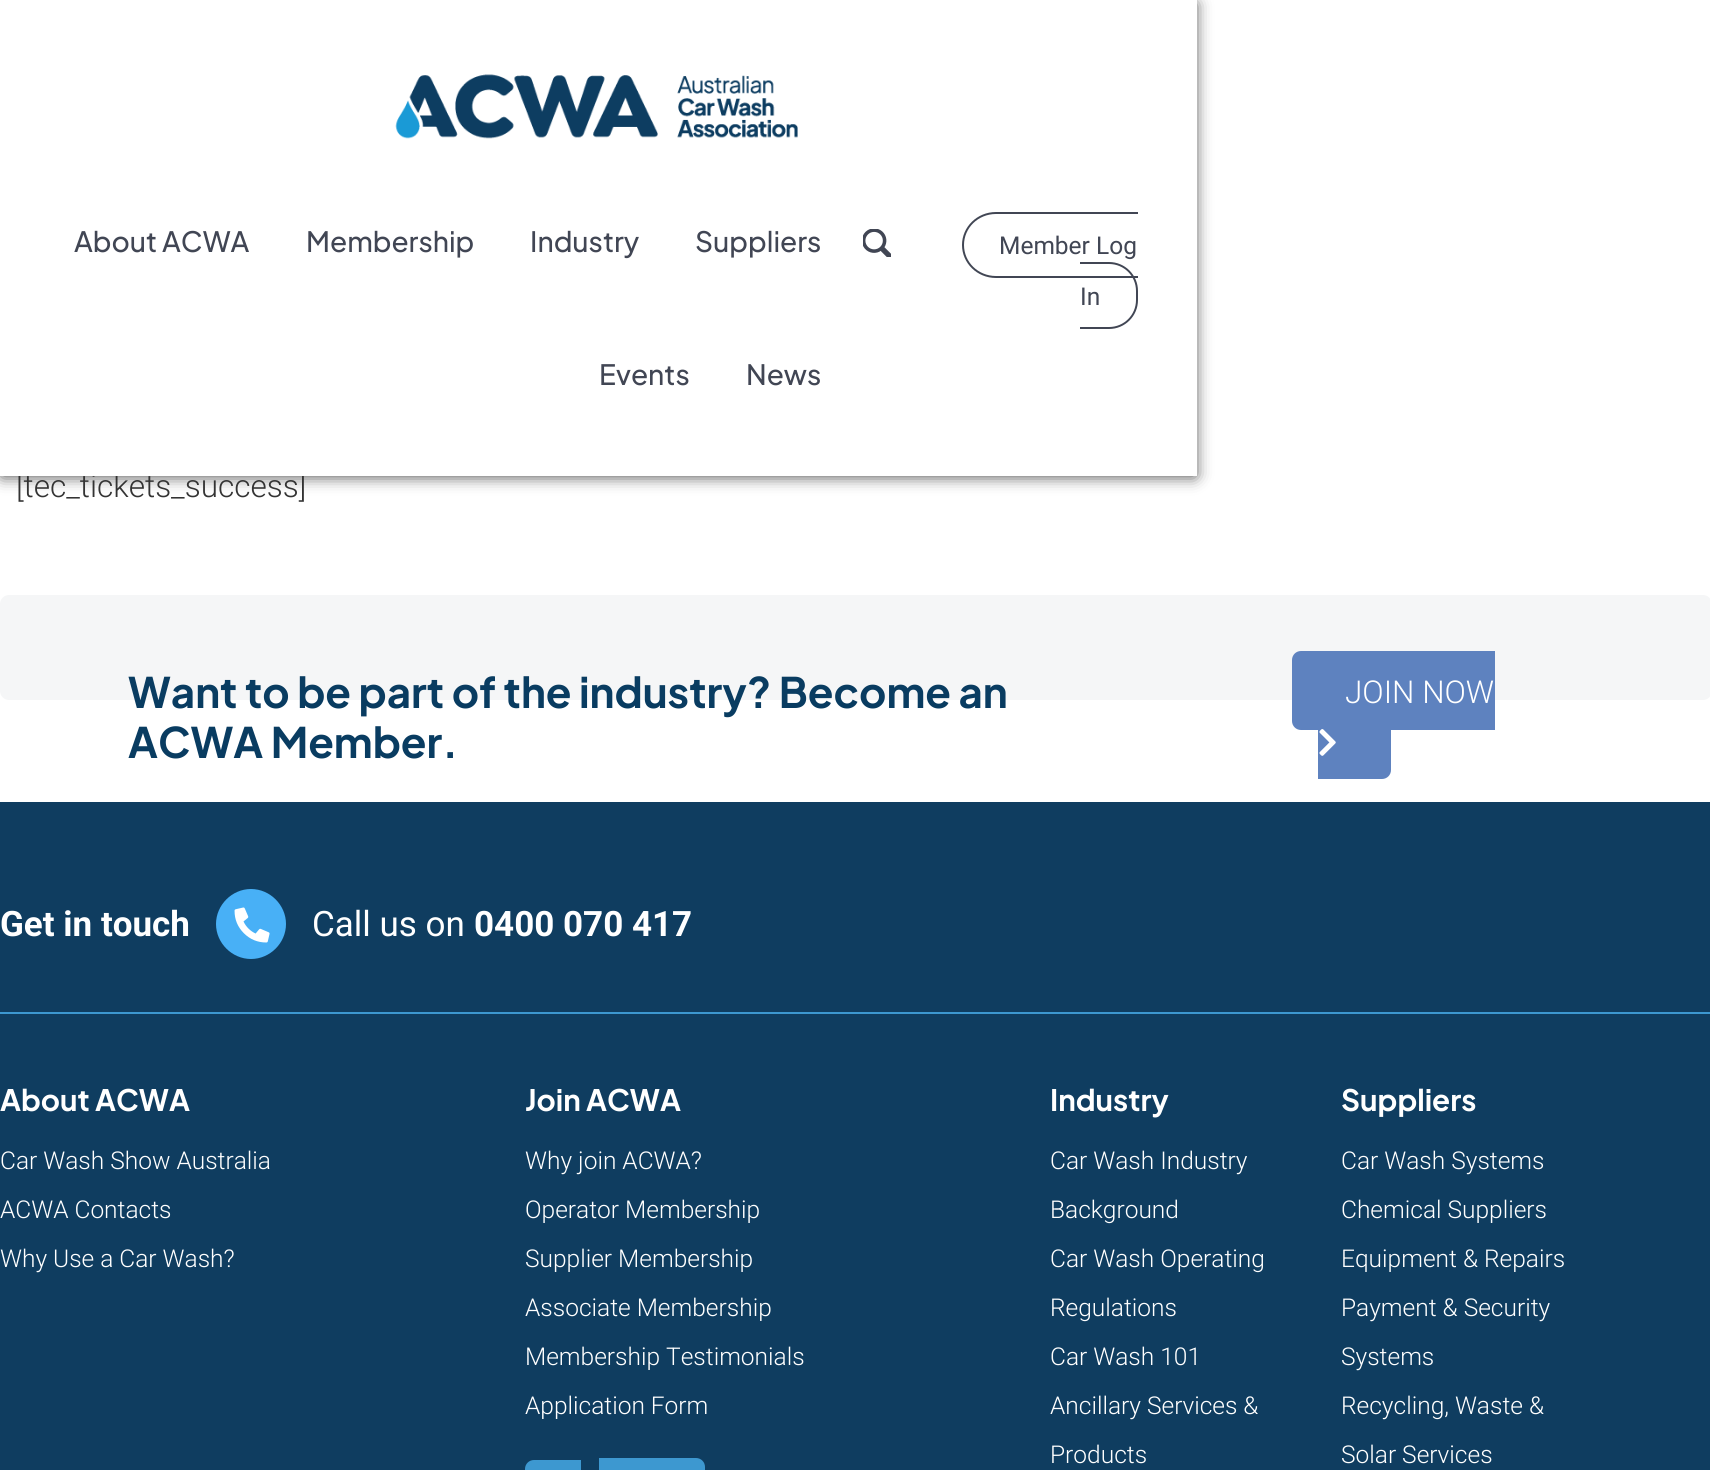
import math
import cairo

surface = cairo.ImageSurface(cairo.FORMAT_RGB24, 1710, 1470)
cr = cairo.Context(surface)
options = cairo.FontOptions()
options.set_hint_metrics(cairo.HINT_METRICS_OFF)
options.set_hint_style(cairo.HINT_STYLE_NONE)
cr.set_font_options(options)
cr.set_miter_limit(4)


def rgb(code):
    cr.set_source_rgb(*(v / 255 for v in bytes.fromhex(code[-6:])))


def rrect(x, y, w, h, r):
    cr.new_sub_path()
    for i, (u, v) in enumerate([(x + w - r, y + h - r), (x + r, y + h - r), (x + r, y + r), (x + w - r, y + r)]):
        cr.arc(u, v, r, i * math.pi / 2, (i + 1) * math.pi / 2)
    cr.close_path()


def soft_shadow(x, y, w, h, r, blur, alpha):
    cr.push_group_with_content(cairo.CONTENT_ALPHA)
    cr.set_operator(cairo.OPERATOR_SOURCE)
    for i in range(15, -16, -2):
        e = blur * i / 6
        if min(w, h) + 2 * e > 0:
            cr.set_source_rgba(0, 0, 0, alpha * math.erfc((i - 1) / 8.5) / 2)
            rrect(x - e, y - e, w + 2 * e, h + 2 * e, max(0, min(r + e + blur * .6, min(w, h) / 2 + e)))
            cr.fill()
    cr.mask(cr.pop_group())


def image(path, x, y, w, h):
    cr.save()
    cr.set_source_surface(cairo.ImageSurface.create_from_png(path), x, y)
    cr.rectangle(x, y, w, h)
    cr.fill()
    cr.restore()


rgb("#ffffff")
cr.paint()
rgb("#000000")
soft_shadow(2, 4, 1193, 472, 0, 8, 0.75)
rgb("#f5f6f7")
rrect(0, 595, 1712, 105, 9)
cr.fill()
rgb("#5e82bf")
cr.new_path()
cr.move_to(1301, 651)
cr.line_to(1495, 651)
cr.line_to(1495, 730)
cr.line_to(1301, 730)
cr.curve_to(1296, 730, 1292, 726, 1292, 721)
cr.line_to(1292, 660)
cr.curve_to(1292, 655, 1296, 651, 1301, 651)
cr.close_path()
cr.fill()
cr.new_path()
cr.move_to(1318, 705)
cr.line_to(1382, 705)
cr.curve_to(1387, 705, 1391, 709, 1391, 714)
cr.line_to(1391, 770)
cr.curve_to(1391, 775, 1387, 779, 1382, 779)
cr.line_to(1318, 779)
cr.close_path()
cr.fill()
image("img/3.png", 1319, 729, 17, 27)
rgb("#0f3d60")
cr.rectangle(0, 802, 1710, 668)
cr.fill()
rgb("#3d98d0")
cr.rectangle(0, 1012, 1710, 2)
cr.fill()
rgb("#48b0f6")
cr.new_path()
cr.move_to(286, 924)
cr.curve_to(286, 943, 270, 959, 251, 959)
cr.curve_to(232, 959, 216, 943, 216, 924)
cr.curve_to(216, 905, 232, 889, 251, 889)
cr.curve_to(270, 889, 286, 905, 286, 924)
cr.close_path()
cr.fill()
image("img/4.png", 234, 907, 36, 36)
rgb("#3d98d0")
cr.new_path()
cr.move_to(534, 1460)
cr.line_to(581, 1460)
cr.line_to(581, 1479)
cr.line_to(534, 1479)
cr.curve_to(529, 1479, 525, 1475, 525, 1470)
cr.line_to(525, 1469)
cr.curve_to(525, 1464, 529, 1460, 534, 1460)
cr.close_path()
cr.fill()
cr.new_path()
cr.move_to(599, 1458)
cr.line_to(696, 1458)
cr.curve_to(701, 1458, 705, 1462, 705, 1467)
cr.line_to(705, 1470)
cr.curve_to(705, 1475, 701, 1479, 696, 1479)
cr.line_to(599, 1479)
cr.close_path()
cr.fill()
cr.select_font_face("Roboto Light")
cr.set_font_size(31.5)
rgb("#333333")
cr.move_to(16, 497)
cr.show_text("[tec_tickets_success]")
rgb("#ffffff")
cr.rectangle(0, 0, 1197, 476)
cr.fill()
image("img/2.png", 863, 229, 28, 28)
rgb("#414654")
cr.set_fill_rule(cairo.FILL_RULE_EVEN_ODD)
cr.new_path()
cr.move_to(996, 212)
cr.line_to(1138, 212)
cr.line_to(1138, 278)
cr.line_to(996, 278)
cr.curve_to(977, 278, 962, 263, 962, 245)
cr.curve_to(962, 227, 977, 212, 996, 212)
cr.close_path()
cr.move_to(996, 214)
cr.line_to(1138, 214)
cr.line_to(1138, 276)
cr.line_to(996, 276)
cr.curve_to(978, 276, 964, 262, 964, 245)
cr.curve_to(964, 228, 978, 214, 996, 214)
cr.close_path()
cr.fill()
cr.new_path()
cr.move_to(1080, 262)
cr.line_to(1109, 262)
cr.curve_to(1125, 262, 1138, 275, 1138, 291)
cr.line_to(1138, 300)
cr.curve_to(1138, 316, 1125, 329, 1109, 329)
cr.line_to(1080, 329)
cr.close_path()
cr.move_to(1080, 264)
cr.line_to(1109, 264)
cr.curve_to(1124, 264, 1136, 276, 1136, 291)
cr.line_to(1136, 300)
cr.curve_to(1136, 315, 1124, 327, 1109, 327)
cr.line_to(1080, 327)
cr.close_path()
cr.fill()
cr.select_font_face("Roboto")
cr.set_font_size(24.5)
cr.move_to(1080, 305)
cr.show_text("In")
cr.move_to(999, 254)
cr.show_text("Member Log")
cr.select_font_face("Plus Jakarta Sans Medium")
cr.set_font_size(28)
for x, y, s in [
    (746, 385, "News"),
    (599, 385, "Events"),
    (695, 252, "Suppliers"),
    (530, 252, "Industry"),
    (306, 252, "Membership"),
    (74, 252, "About ACWA"),
]:
    cr.move_to(x, y)
    cr.show_text(s)
image("img/1.png", 395, 74, 403, 65)
cr.select_font_face("Plus Jakarta Sans", cairo.FONT_SLANT_NORMAL, cairo.FONT_WEIGHT_BOLD)
cr.set_font_size(42)
rgb("#093c61")
cr.move_to(128, 708)
cr.show_text("Want to be part of the industry? Become an")
cr.move_to(128, 758)
cr.show_text("ACWA Member.")
cr.select_font_face("Roboto Light")
cr.set_font_size(31.5)
rgb("#ffffff")
cr.move_to(1345, 703)
cr.show_text("JOIN NOW")
cr.select_font_face("Roboto", cairo.FONT_SLANT_NORMAL, cairo.FONT_WEIGHT_BOLD)
cr.set_font_size(35)
cr.move_to(0, 936)
cr.show_text("Get in touch")
cr.select_font_face("Roboto")
cr.move_to(312, 936)
cr.show_text("Call us on")
cr.select_font_face("Roboto", cairo.FONT_SLANT_NORMAL, cairo.FONT_WEIGHT_BOLD)
cr.move_to(474, 936)
cr.show_text("0400 070 417")
cr.select_font_face("Plus Jakarta Sans", cairo.FONT_SLANT_NORMAL, cairo.FONT_WEIGHT_BOLD)
cr.set_font_size(29.5)
cr.move_to(0, 1111)
cr.show_text("About ACWA")
cr.select_font_face("Roboto Light")
cr.set_font_size(24.5)
for x, y, s in [
    (0, 1169, "Car Wash Show Australia"),
    (0, 1218, "ACWA Contacts"),
    (0, 1267, "Why Use a Car Wash?"),
]:
    cr.move_to(x, y)
    cr.show_text(s)
cr.select_font_face("Plus Jakarta Sans", cairo.FONT_SLANT_NORMAL, cairo.FONT_WEIGHT_BOLD)
cr.set_font_size(29.5)
cr.move_to(525, 1111)
cr.show_text("Join ACWA")
cr.select_font_face("Roboto Light")
cr.set_font_size(24.5)
for x, y, s in [
    (525, 1169, "Why join ACWA?"),
    (525, 1218, "Operator Membership"),
    (525, 1267, "Supplier Membership"),
    (525, 1316, "Associate Membership"),
    (525, 1365, "Membership Testimonials"),
    (525, 1414, "Application Form"),
]:
    cr.move_to(x, y)
    cr.show_text(s)
cr.select_font_face("Plus Jakarta Sans", cairo.FONT_SLANT_NORMAL, cairo.FONT_WEIGHT_BOLD)
cr.set_font_size(29.5)
cr.move_to(1050, 1111)
cr.show_text("Industry")
cr.select_font_face("Roboto Light")
cr.set_font_size(24.5)
for x, y, s in [
    (1050, 1169, "Car Wash Industry"),
    (1050, 1218, "Background"),
    (1050, 1267, "Car Wash Operating"),
    (1050, 1316, "Regulations"),
    (1050, 1365, "Car Wash 101"),
    (1050, 1414, "Ancillary Services &"),
    (1050, 1463, "Products"),
]:
    cr.move_to(x, y)
    cr.show_text(s)
cr.select_font_face("Plus Jakarta Sans", cairo.FONT_SLANT_NORMAL, cairo.FONT_WEIGHT_BOLD)
cr.set_font_size(29.5)
cr.move_to(1341, 1111)
cr.show_text("Suppliers")
cr.select_font_face("Roboto Light")
cr.set_font_size(24.5)
for x, y, s in [
    (1341, 1169, "Car Wash Systems"),
    (1341, 1218, "Chemical Suppliers"),
    (1341, 1267, "Equipment & Repairs"),
    (1341, 1316, "Payment & Security"),
    (1341, 1365, "Systems"),
    (1341, 1414, "Recycling, Waste &"),
    (1341, 1463, "Solar Services"),
]:
    cr.move_to(x, y)
    cr.show_text(s)
surface.write_to_png("page.png")
